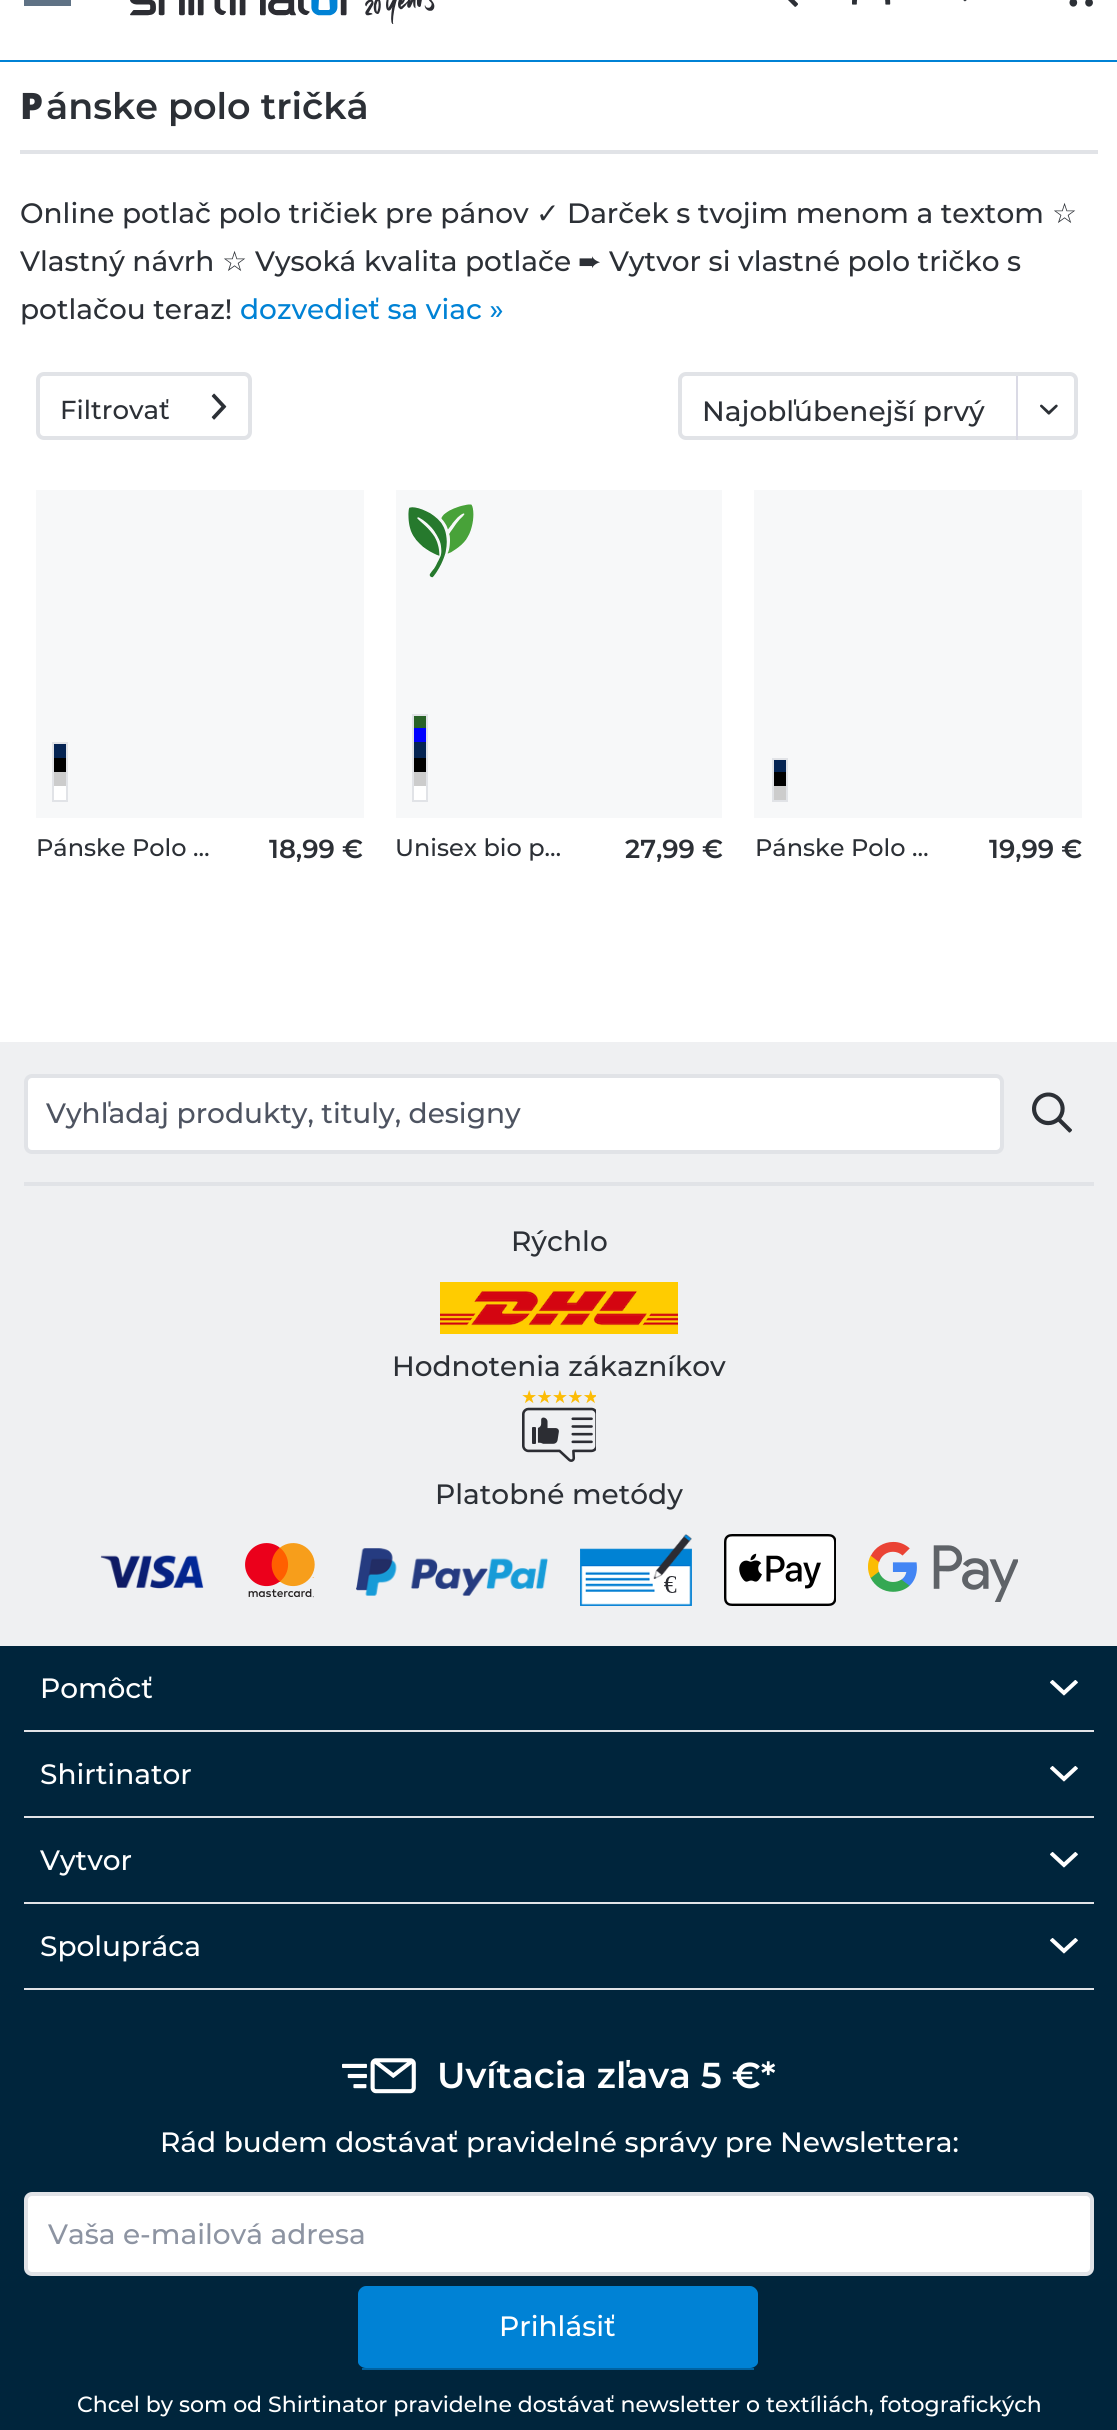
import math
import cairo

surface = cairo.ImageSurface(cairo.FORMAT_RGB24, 1117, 2430)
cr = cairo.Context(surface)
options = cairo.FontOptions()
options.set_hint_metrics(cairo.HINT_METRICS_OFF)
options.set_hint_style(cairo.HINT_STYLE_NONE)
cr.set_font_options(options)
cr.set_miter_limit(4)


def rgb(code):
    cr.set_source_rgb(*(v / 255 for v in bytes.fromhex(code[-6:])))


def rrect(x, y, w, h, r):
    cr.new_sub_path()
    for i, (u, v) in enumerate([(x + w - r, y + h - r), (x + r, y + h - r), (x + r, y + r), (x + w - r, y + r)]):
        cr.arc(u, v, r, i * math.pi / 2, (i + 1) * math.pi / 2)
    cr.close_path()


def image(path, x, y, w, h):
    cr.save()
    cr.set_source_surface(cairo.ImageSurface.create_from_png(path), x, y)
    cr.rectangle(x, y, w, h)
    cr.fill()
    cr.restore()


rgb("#ffffff")
cr.paint()
rgb("#0082d5")
cr.rectangle(0, 60, 1117, 2)
cr.fill()
rgb("#5f7285")
cr.rectangle(24, 0, 47, 6)
cr.fill()
image("img/1.png", 130, 0, 305, 24)
image("img/2.png", 788, 0, 10, 7)
image("img/3.png", 852, 0, 39, 5)
image("img/4.png", 963, 0, 4, 2)
image("img/5.png", 1069, 0, 24, 7)
rgb("#e1e3e7")
cr.rectangle(20, 150, 1078, 4)
cr.fill()
rrect(38, 374, 212, 64, 6)
cr.set_line_width(4)
cr.stroke()
image("img/6.png", 211, 393, 16, 27)
rrect(680, 374, 396, 64, 6)
cr.stroke()
rgb("#dadae5")
cr.rectangle(1016, 376, 2, 64)
cr.fill()
image("img/7.png", 1040, 404, 18, 11)
for x, y, w, h, color in [
    (36, 490, 328, 328, "#f7f8f9"),
    (54, 744, 12, 14, "#052453"),
    (52, 742, 16, 2, "#e1e3e7"),
    (66, 742, 2, 16, "#e1e3e7"),
    (52, 742, 2, 16, "#e1e3e7"),
    (54, 786, 12, 14, "#ffffff"),
    (66, 758, 2, 44, "#e1e3e7"),
    (52, 800, 16, 2, "#e1e3e7"),
    (52, 758, 2, 44, "#e1e3e7"),
    (54, 758, 12, 14, "#000000"),
    (54, 772, 12, 14, "#cccccc"),
    (396, 490, 326, 328, "#f7f8f9"),
]:
    rgb(color)
    cr.rectangle(x, y, w, h)
    cr.fill()
image("img/8.png", 408, 504, 66, 74)
for x, y, w, h, color in [
    (414, 716, 12, 12, "#286227"),
    (412, 714, 16, 2, "#e1e3e7"),
    (426, 714, 2, 14, "#e1e3e7"),
    (412, 714, 2, 14, "#e1e3e7"),
    (414, 786, 12, 14, "#ffffff"),
    (426, 728, 2, 74, "#e1e3e7"),
    (412, 800, 16, 2, "#e1e3e7"),
    (412, 728, 2, 74, "#e1e3e7"),
    (414, 728, 12, 14, "#0000ff"),
    (414, 742, 12, 16, "#052453"),
    (414, 758, 12, 14, "#000000"),
    (414, 772, 12, 14, "#cccccc"),
    (754, 490, 328, 328, "#f7f8f9"),
    (774, 760, 12, 12, "#052453"),
    (772, 758, 16, 2, "#e1e3e7"),
    (786, 758, 2, 14, "#e1e3e7"),
    (772, 758, 2, 14, "#e1e3e7"),
    (774, 786, 12, 14, "#cccccc"),
    (786, 772, 2, 30, "#e1e3e7"),
    (772, 800, 16, 2, "#e1e3e7"),
    (772, 772, 2, 30, "#e1e3e7"),
    (774, 772, 12, 14, "#000000"),
    (0, 1646, 1117, 784, "#00253c"),
    (0, 1042, 1117, 604, "#eff0f2"),
    (24, 1182, 1070, 4, "#e1e3e7"),
]:
    rgb(color)
    cr.rectangle(x, y, w, h)
    cr.fill()
rgb("#ffffff")
rrect(26, 1076, 976, 76, 6)
cr.fill_preserve()
rgb("#e1e3e7")
cr.stroke()
image("img/9.png", 1032, 1092, 40, 41)
image("img/10.png", 440, 1282, 238, 52)
image("img/11.png", 522, 1390, 74, 72)
image("img/12.png", 100, 1555, 104, 34)
image("img/13.png", 245, 1543, 70, 55)
image("img/14.png", 356, 1548, 192, 48)
image("img/15.png", 580, 1534, 112, 72)
image("img/16.png", 724, 1534, 112, 72)
image("img/17.png", 868, 1541, 150, 61)
image("img/18.png", 1050, 1680, 28, 16)
cr.rectangle(24, 1730, 1070, 2)
cr.fill()
image("img/18.png", 1050, 1766, 28, 16)
cr.rectangle(24, 1816, 1070, 2)
cr.fill()
image("img/18.png", 1050, 1852, 28, 16)
cr.rectangle(24, 1902, 1070, 2)
cr.fill()
image("img/18.png", 1050, 1938, 28, 16)
cr.rectangle(24, 1988, 1070, 2)
cr.fill()
image("img/19.png", 342, 2058, 74, 36)
rgb("#ffffff")
rrect(26, 2194, 1066, 80, 6)
cr.fill_preserve()
rgb("#e1e3e7")
cr.stroke()
rgb("#0082d5")
cr.new_path()
cr.move_to(366, 2286)
cr.line_to(750, 2286)
cr.curve_to(754, 2286, 758, 2290, 758, 2294)
cr.line_to(758, 2362)
cr.curve_to(758, 2365, 754, 2368, 750, 2368)
cr.line_to(366, 2368)
cr.curve_to(362, 2368, 358, 2365, 358, 2362)
cr.line_to(358, 2294)
cr.curve_to(358, 2290, 362, 2286, 366, 2286)
cr.close_path()
cr.fill()
rgb("#0063a2")
cr.rectangle(362, 2368, 392, 2)
cr.fill()
cr.select_font_face("Noto Sans Black")
cr.set_font_size(36.5)
rgb("#2c3036")
cr.move_to(20, 119)
cr.show_text("P")
cr.select_font_face("Montserrat SemiBold")
cr.move_to(46, 119)
cr.show_text("ánske polo tričká")
cr.select_font_face("Montserrat Medium")
cr.set_font_size(28)
cr.move_to(20, 223)
cr.show_text("Online potlač polo tričiek pre pánov")
cr.select_font_face("DejaVu Sans")
cr.move_to(536, 223)
cr.show_text("✓")
cr.select_font_face("Montserrat Medium")
cr.move_to(567, 223)
cr.show_text("Darček s tvojim menom a textom")
cr.select_font_face("DejaVu Sans")
cr.move_to(1052, 223)
cr.show_text("☆")
cr.select_font_face("Montserrat Medium")
cr.move_to(20, 271)
cr.show_text("Vlastný návrh")
cr.select_font_face("DejaVu Sans")
cr.move_to(222, 271)
cr.show_text("☆")
cr.select_font_face("Montserrat Medium")
cr.move_to(255, 271)
cr.show_text("Vysoká kvalita potlače")
cr.select_font_face("DejaVu Sans")
cr.move_to(578, 271)
cr.show_text("➨")
cr.select_font_face("Montserrat Medium")
cr.move_to(609, 271)
cr.show_text("Vytvor si vlastné polo tričko s")
cr.move_to(20, 319)
cr.show_text("potlačou teraz!")
rgb("#0082d5")
cr.move_to(240, 319)
cr.show_text("dozvedieť sa viac »")
cr.set_font_size(26)
rgb("#2c3036")
cr.move_to(60, 419)
cr.show_text("Filtrovať")
cr.set_font_size(28)
cr.move_to(702, 421)
cr.show_text("Najobľúbenejší prvý")
cr.set_font_size(24)
cr.move_to(36, 856)
cr.show_text("Pánske Polo …")
cr.select_font_face("Montserrat SemiBold")
cr.set_font_size(26)
cr.move_to(269, 858)
cr.show_text("18,99 €")
cr.select_font_face("Montserrat Medium")
cr.set_font_size(24)
cr.move_to(395, 856)
cr.show_text("Unisex bio p…")
cr.select_font_face("Montserrat SemiBold")
cr.set_font_size(26)
cr.move_to(625, 858)
cr.show_text("27,99 €")
cr.select_font_face("Montserrat Medium")
cr.set_font_size(24)
cr.move_to(755, 856)
cr.show_text("Pánske Polo …")
cr.select_font_face("Montserrat SemiBold")
cr.set_font_size(26)
cr.move_to(989, 858)
cr.show_text("19,99 €")
cr.select_font_face("Montserrat Medium")
cr.set_font_size(28)
rgb("#4e5461")
cr.move_to(46, 1123)
cr.show_text("Vyhľadaj produkty, tituly, designy")
rgb("#2c3036")
for x, y, s in [
    (511, 1251, "Rýchlo"),
    (392, 1376, "Hodnotenia zákazníkov"),
    (435, 1504, "Platobné metódy"),
]:
    cr.move_to(x, y)
    cr.show_text(s)
rgb("#ffffff")
for x, y, s in [
    (40, 1698, "Pomôcť"),
    (40, 1784, "Shirtinator"),
    (40, 1870, "Vytvor"),
    (40, 1956, "Spolupráca"),
]:
    cr.move_to(x, y)
    cr.show_text(s)
cr.select_font_face("Montserrat SemiBold")
cr.set_font_size(36)
cr.move_to(437, 2088)
cr.show_text("Uvítacia zľava 5 €*")
cr.select_font_face("Montserrat Medium")
cr.set_font_size(28)
cr.move_to(160, 2152)
cr.show_text("Rád budem dostávať pravidelné správy pre Newslettera:")
rgb("#8d94a2")
cr.move_to(48, 2244)
cr.show_text("Vaša e-mailová adresa")
rgb("#ffffff")
cr.move_to(499, 2336)
cr.show_text("Prihlásiť")
cr.set_font_size(22)
cr.move_to(77, 2412)
cr.show_text("Chcel by som od Shirtinator pravidelne dostávať newsletter o textíliách, fotografických")
surface.write_to_png("page.png")
